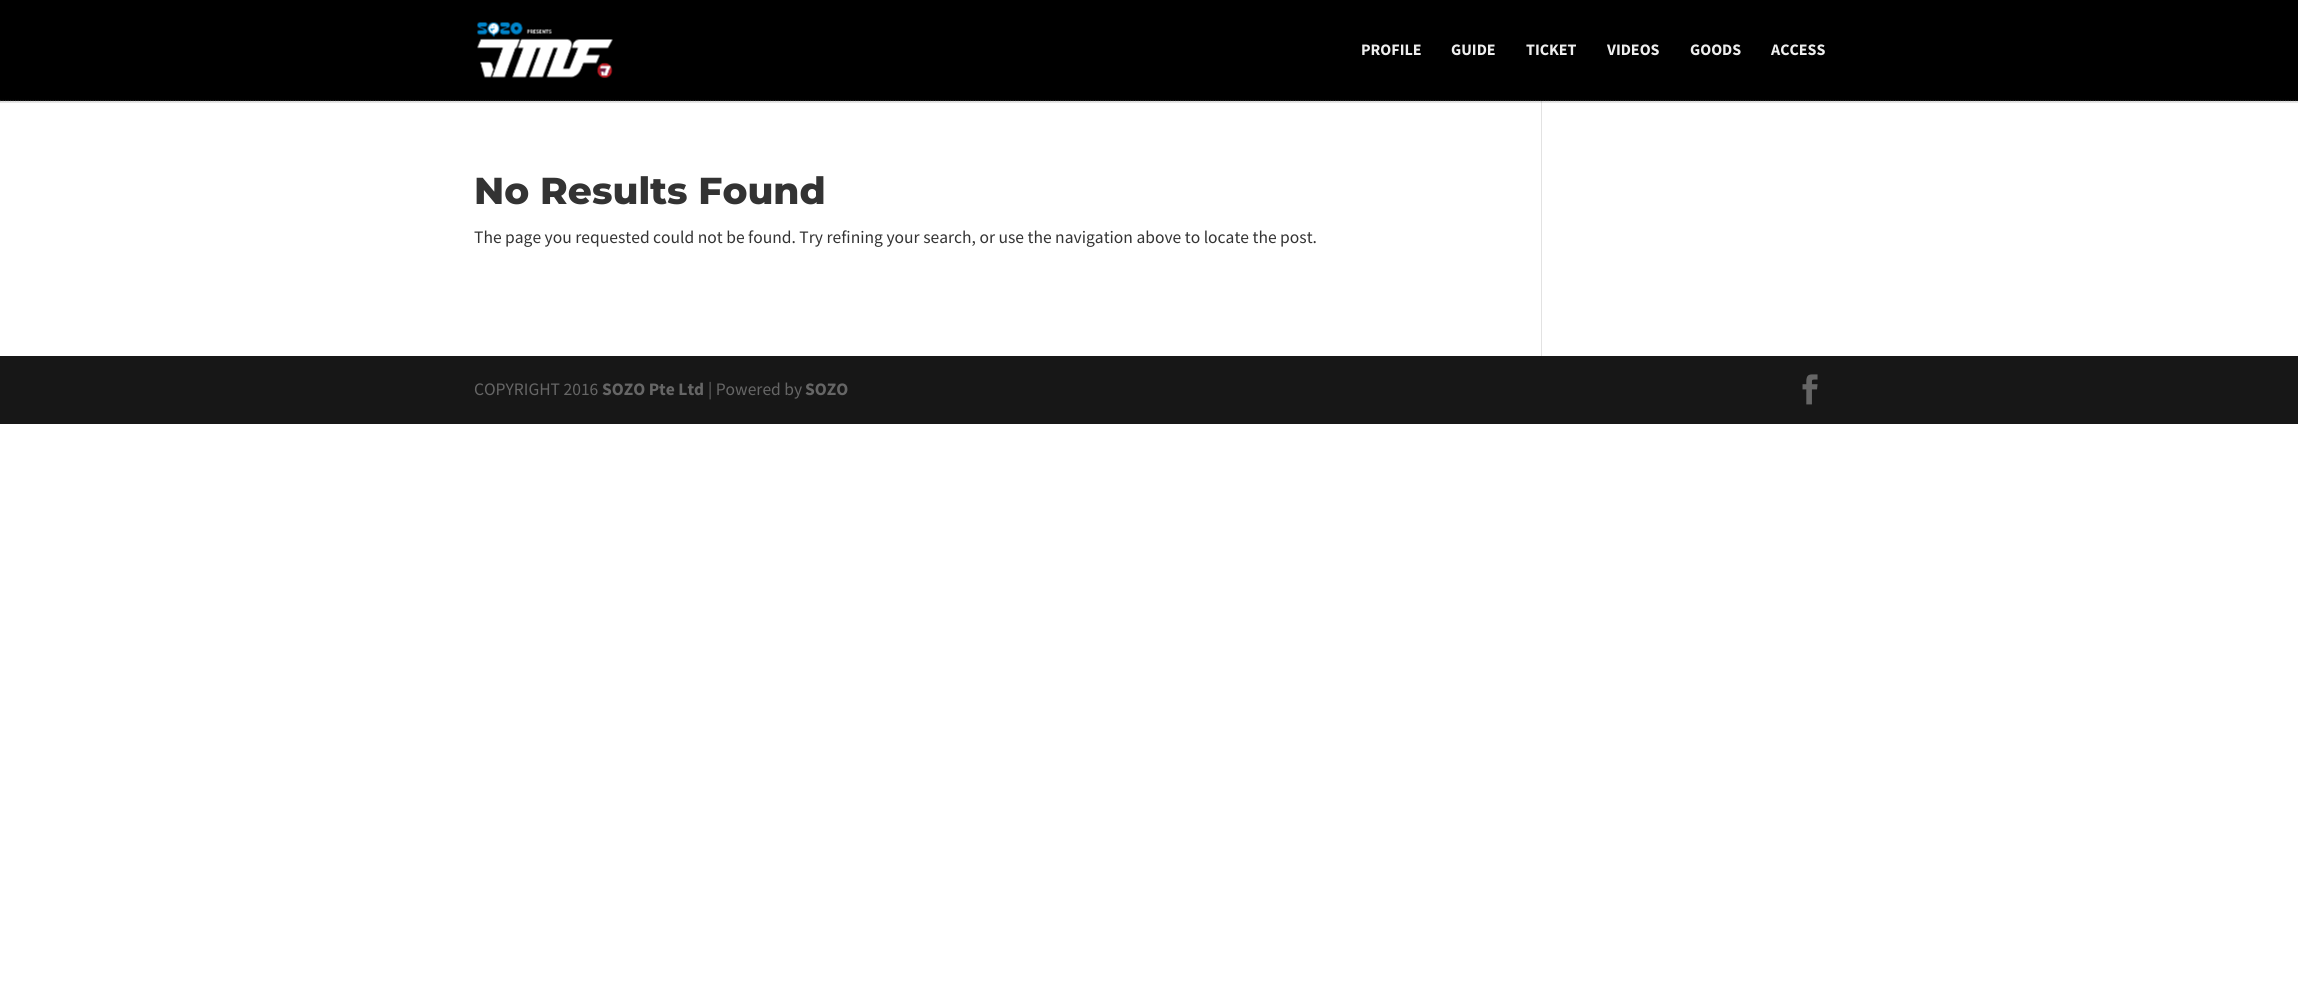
import math
import cairo

surface = cairo.ImageSurface(cairo.FORMAT_RGB24, 2298, 985)
cr = cairo.Context(surface)
options = cairo.FontOptions()
options.set_hint_metrics(cairo.HINT_METRICS_OFF)
options.set_hint_style(cairo.HINT_STYLE_NONE)
cr.set_font_options(options)
cr.set_miter_limit(4)


def rgb(code):
    cr.set_source_rgb(*(v / 255 for v in bytes.fromhex(code[-6:])))


def image(path, x, y, w, h):
    cr.save()
    cr.set_source_surface(cairo.ImageSurface.create_from_png(path), x, y)
    cr.rectangle(x, y, w, h)
    cr.fill()
    cr.restore()


rgb("#ffffff")
cr.paint()
rgb("#e2e2e2")
cr.rectangle(1541, 100, 1, 256)
cr.fill()
cr.set_source_rgba(0, 0, 0, 0.1)
cr.new_path()
cr.move_to(0, 101)
cr.line_to(0, 103)
cr.line_to(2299, 103)
cr.line_to(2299, 1)
cr.line_to(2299, 101)
cr.close_path()
cr.fill()
rgb("#000000")
cr.rectangle(0, 0, 2298, 101)
cr.fill()
cr.new_path()
cr.move_to(0, 100.5)
cr.line_to(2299, 100.5)
rgb("#222222")
cr.set_line_width(1.2)
cr.set_dash([1.25, 1.25])
cr.stroke()
image("img/1.png", 477, 22, 136, 56)
rgb("#171717")
cr.rectangle(0, 356, 2298, 68)
cr.fill()
image("img/2.png", 1802, 374, 16, 31)
cr.select_font_face("Source Sans Pro", cairo.FONT_SLANT_NORMAL, cairo.FONT_WEIGHT_BOLD)
cr.set_font_size(16)
rgb("#eeeeee")
for x, y, s in [
    (1361, 55, "PROFILE"),
    (1451, 55, "GUIDE"),
    (1526, 55, "TICKET"),
    (1607, 55, "VIDEOS"),
    (1690, 55, "GOODS"),
    (1771, 55, "ACCESS"),
]:
    cr.move_to(x, y)
    cr.show_text(s)
cr.select_font_face("Montserrat ExtraBold")
cr.set_font_size(37.5)
rgb("#333333")
cr.move_to(474, 204)
cr.show_text("No Results Found")
cr.select_font_face("Source Sans Pro")
cr.set_font_size(17.5)
cr.move_to(474, 243)
cr.show_text("The page you requested could not be found. Try refining your search, or use the navigation above to locate the post.")
rgb("#666666")
cr.move_to(474, 395)
cr.show_text("COPYRIGHT 2016")
cr.select_font_face("Source Sans Pro", cairo.FONT_SLANT_NORMAL, cairo.FONT_WEIGHT_BOLD)
cr.move_to(602, 395)
cr.show_text("SOZO Pte Ltd")
cr.select_font_face("Source Sans Pro")
cr.move_to(708, 395)
cr.show_text("| Powered by")
cr.select_font_face("Source Sans Pro", cairo.FONT_SLANT_NORMAL, cairo.FONT_WEIGHT_BOLD)
cr.move_to(805, 395)
cr.show_text("SOZO")
surface.write_to_png("page.png")
